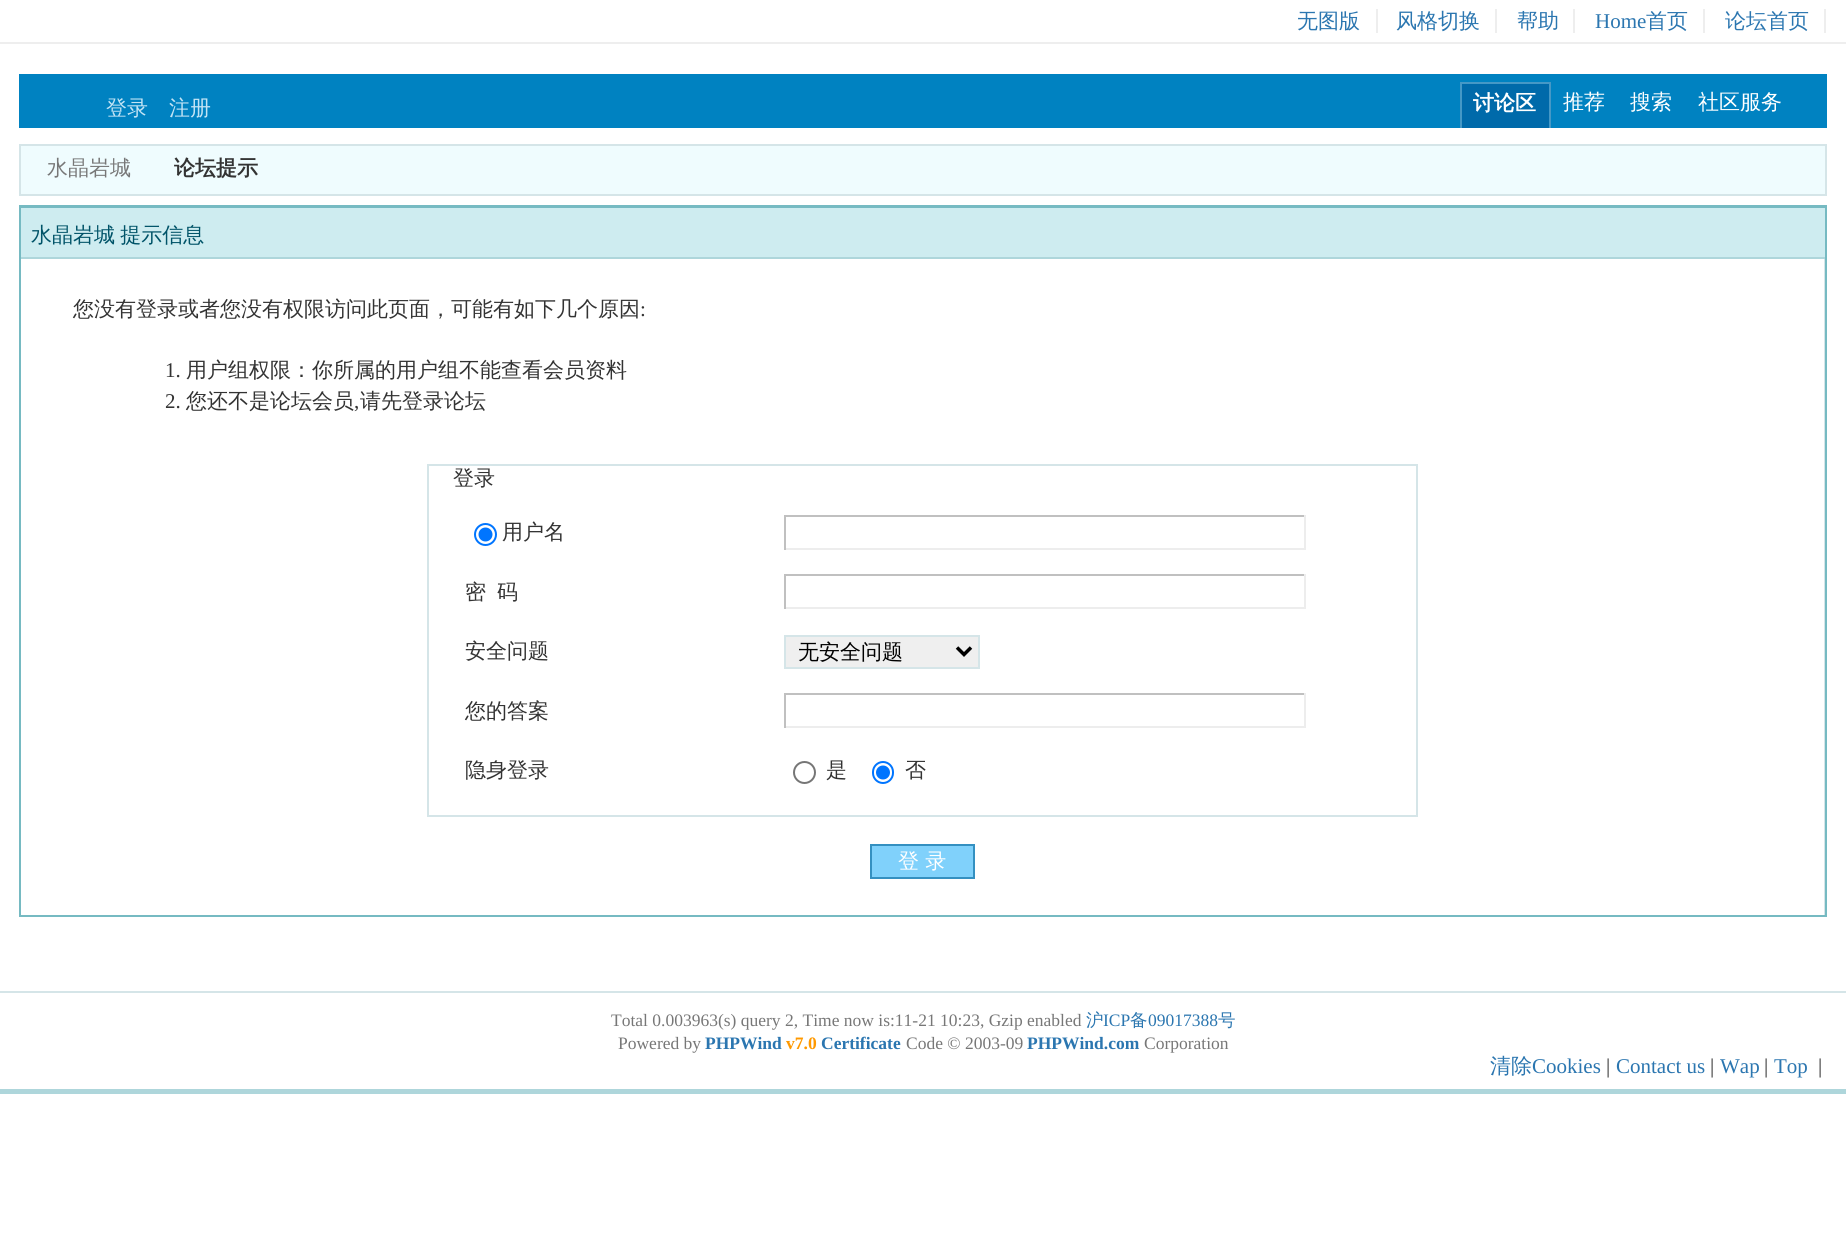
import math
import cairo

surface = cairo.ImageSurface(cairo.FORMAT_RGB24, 1846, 1244)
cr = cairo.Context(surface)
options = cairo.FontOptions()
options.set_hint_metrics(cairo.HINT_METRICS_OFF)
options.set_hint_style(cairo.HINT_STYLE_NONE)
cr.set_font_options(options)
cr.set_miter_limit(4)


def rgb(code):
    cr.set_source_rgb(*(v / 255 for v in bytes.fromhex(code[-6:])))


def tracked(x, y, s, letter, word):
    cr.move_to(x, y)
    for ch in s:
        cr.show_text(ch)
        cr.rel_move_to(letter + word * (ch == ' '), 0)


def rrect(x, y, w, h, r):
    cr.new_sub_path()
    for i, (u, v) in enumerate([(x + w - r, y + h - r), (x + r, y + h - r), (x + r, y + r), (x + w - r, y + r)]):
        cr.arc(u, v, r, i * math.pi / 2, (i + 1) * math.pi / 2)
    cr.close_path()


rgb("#ffffff")
cr.paint()
for x, y, w, h, color in [
    (0, 42, 1846, 2, "#eeeeee"),
    (1376, 9, 2, 24, "#eeeeee"),
    (1495, 9, 2, 24, "#eeeeee"),
    (1573, 9, 2, 24, "#eeeeee"),
    (1703, 9, 2, 24, "#eeeeee"),
    (1824, 9, 2, 24, "#eeeeee"),
    (19, 74, 1808, 54, "#0082c1"),
    (1462, 84, 87, 44, "#006aaa"),
    (1460, 82, 91, 2, "#4598c6"),
    (1549, 82, 2, 46, "#4598c6"),
    (1460, 82, 2, 46, "#4598c6"),
]:
    rgb(color)
    cr.rectangle(x, y, w, h)
    cr.fill()
rgb("#effcfe")
cr.rectangle(20, 145, 1806, 50)
cr.fill_preserve()
rgb("#d5e5e8")
cr.stroke()
for x, y, w, h, color in [
    (19, 205, 1808, 3, "#76bac2"),
    (1825, 205, 2, 712, "#76bac2"),
    (19, 915, 1808, 2, "#76bac2"),
    (19, 205, 2, 712, "#76bac2"),
    (21, 208, 1804, 49, "#ceecf0"),
    (21, 257, 1804, 2, "#aed6db"),
    (1824, 259, 1, 656, "#d5e5e8"),
]:
    rgb(color)
    cr.rectangle(x, y, w, h)
    cr.fill()
cr.rectangle(428, 465, 989, 351)
cr.stroke()
cr.arc(485.5, 534.5, 10.5, 0, 2 * math.pi)
rgb("#0075ff")
cr.stroke()
cr.arc(485.5, 534.5, 7, 0, 2 * math.pi)
cr.fill()
for x, y, w, h, color in [
    (784, 515, 522, 2, "#c0c0c0"),
    (1304, 515, 2, 35, "#ededed"),
    (784, 548, 522, 2, "#ededed"),
    (784, 515, 2, 35, "#c0c0c0"),
    (784, 574, 522, 2, "#c0c0c0"),
    (1304, 574, 2, 35, "#ededed"),
    (784, 607, 522, 2, "#ededed"),
    (784, 574, 2, 35, "#c0c0c0"),
]:
    rgb(color)
    cr.rectangle(x, y, w, h)
    cr.fill()
rgb("#efefef")
cr.rectangle(785, 636, 194, 32)
cr.fill_preserve()
rgb("#d5e5e8")
cr.stroke()
cr.new_path()
cr.move_to(957, 647.5)
cr.line_to(964, 654.5)
cr.line_to(971, 647.5)
rgb("#000000")
cr.set_line_width(3.5)
cr.stroke()
for x, y, w, h, color in [
    (784, 693, 522, 2, "#c0c0c0"),
    (1304, 693, 2, 35, "#ededed"),
    (784, 726, 522, 2, "#ededed"),
    (784, 693, 2, 35, "#c0c0c0"),
]:
    rgb(color)
    cr.rectangle(x, y, w, h)
    cr.fill()
cr.arc(804.5, 772.5, 10.5, 0, 2 * math.pi)
rgb("#767676")
cr.set_line_width(2)
cr.stroke()
rrect(873, 762, 20, 21, 10)
rgb("#0075ff")
cr.stroke()
cr.arc(883, 772.5, 7, 0, 2 * math.pi)
cr.fill()
rgb("#80d1fb")
cr.rectangle(871, 845, 103, 33)
cr.fill_preserve()
rgb("#3490c1")
cr.stroke()
rgb("#d5e5e8")
cr.rectangle(0, 991, 1846, 2)
cr.fill()
rgb("#aed6db")
cr.rectangle(0, 1089, 1846, 5)
cr.fill()
cr.select_font_face("WenQuanYi Zen Hei Medium")
cr.set_font_size(21)
rgb("#2b76b0")
for x, y, s in [
    (1297, 28, "无图版"),
    (1396, 28, "风格切换"),
    (1517, 28, "帮助"),
]:
    cr.move_to(x, y)
    cr.show_text(s)
cr.select_font_face("Liberation Serif")
cr.move_to(1595, 28)
cr.show_text("Home")
cr.select_font_face("WenQuanYi Zen Hei Medium")
cr.move_to(1646, 28)
cr.show_text("首页")
cr.move_to(1725, 28)
cr.show_text("论坛首页")
rgb("#c3e4f5")
cr.move_to(106, 115)
cr.show_text("登录")
cr.move_to(169, 115)
cr.show_text("注册")
cr.select_font_face("WenQuanYi Zen Hei", cairo.FONT_SLANT_NORMAL, cairo.FONT_WEIGHT_BOLD)
rgb("#ffffff")
cr.move_to(1473, 110)
cr.show_text("讨论区")
cr.select_font_face("WenQuanYi Zen Hei Medium")
for x, y, s in [
    (1563, 109, "推荐"),
    (1630, 109, "搜索"),
    (1698, 109, "社区服务"),
]:
    cr.move_to(x, y)
    cr.show_text(s)
rgb("#777777")
cr.move_to(47, 175)
cr.show_text("水晶岩城")
cr.select_font_face("WenQuanYi Zen Hei", cairo.FONT_SLANT_NORMAL, cairo.FONT_WEIGHT_BOLD)
rgb("#333333")
cr.move_to(174, 175)
cr.show_text("论坛提示")
cr.select_font_face("WenQuanYi Zen Hei Medium")
rgb("#005368")
tracked(31, 242, "水晶岩城 提示信息", 0, -1)
rgb("#333333")
cr.move_to(73, 316)
cr.show_text("您没有登录或者您没有权限访问此页面，可能有如下几个原因")
cr.select_font_face("Liberation Serif")
cr.move_to(640, 316)
cr.show_text(":")
cr.move_to(165, 377)
cr.show_text("1.")
cr.select_font_face("WenQuanYi Zen Hei Medium")
cr.move_to(186, 377)
cr.show_text("用户组权限：你所属的用户组不能查看会员资料")
cr.select_font_face("Liberation Serif")
cr.move_to(165, 408)
cr.show_text("2.")
cr.select_font_face("WenQuanYi Zen Hei Medium")
cr.move_to(186, 408)
cr.show_text("您还不是论坛会员")
cr.select_font_face("Liberation Serif")
cr.move_to(354, 408)
cr.show_text(",")
cr.select_font_face("WenQuanYi Zen Hei Medium")
for x, y, s in [
    (360, 408, "请先登录论坛"),
    (453, 485, "登录"),
    (502, 539, "用户名"),
    (465, 599, "密"),
    (497, 599, "码"),
    (465, 658, "安全问题"),
]:
    cr.move_to(x, y)
    cr.show_text(s)
rgb("#000000")
cr.move_to(798, 659)
cr.show_text("无安全问题")
rgb("#333333")
for x, y, s in [
    (465, 718, "您的答案"),
    (465, 777, "隐身登录"),
    (826, 777, "是"),
    (905, 777, "否"),
]:
    cr.move_to(x, y)
    cr.show_text(s)
rgb("#ffffff")
cr.move_to(898, 868)
cr.show_text("登 录")
cr.select_font_face("Liberation Serif")
cr.set_font_size(17.5)
rgb("#777777")
cr.move_to(611, 1026)
cr.show_text("Total 0.003963(s) query 2, Time now is:11-21 10:23, Gzip enabled")
cr.select_font_face("WenQuanYi Zen Hei Medium")
rgb("#2b76b0")
cr.move_to(1086, 1026)
cr.show_text("沪")
cr.select_font_face("Liberation Serif")
cr.move_to(1103, 1026)
cr.show_text("ICP")
cr.select_font_face("WenQuanYi Zen Hei Medium")
cr.move_to(1130, 1026)
cr.show_text("备")
cr.select_font_face("Liberation Serif")
cr.move_to(1148, 1026)
cr.show_text("09017388")
cr.select_font_face("WenQuanYi Zen Hei Medium")
cr.move_to(1218, 1026)
cr.show_text("号")
cr.select_font_face("Liberation Serif")
rgb("#777777")
cr.move_to(618, 1049)
cr.show_text("Powered by")
cr.select_font_face("Liberation Serif", cairo.FONT_SLANT_NORMAL, cairo.FONT_WEIGHT_BOLD)
rgb("#2b76b0")
cr.move_to(705, 1049)
cr.show_text("PHPWind")
rgb("#ff9900")
cr.move_to(786, 1049)
cr.show_text("v7.0")
rgb("#2b76b0")
cr.move_to(821, 1049)
cr.show_text("Certificate")
cr.select_font_face("Liberation Serif")
rgb("#777777")
cr.move_to(906, 1049)
cr.show_text("Code © 2003-09")
cr.select_font_face("Liberation Serif", cairo.FONT_SLANT_NORMAL, cairo.FONT_WEIGHT_BOLD)
rgb("#2b76b0")
cr.move_to(1027, 1049)
cr.show_text("PHPWind.com")
cr.select_font_face("Liberation Serif")
rgb("#777777")
cr.move_to(1144, 1049)
cr.show_text("Corporation")
cr.select_font_face("WenQuanYi Zen Hei Medium")
cr.set_font_size(21)
rgb("#2b76b0")
cr.move_to(1490, 1073)
cr.show_text("清除")
cr.select_font_face("Liberation Serif")
cr.move_to(1532, 1073)
cr.show_text("Cookies")
rgb("#333333")
cr.move_to(1606, 1073)
cr.show_text("|")
rgb("#2b76b0")
cr.move_to(1616, 1073)
cr.show_text("Contact us")
rgb("#333333")
cr.move_to(1710, 1073)
cr.show_text("|")
rgb("#2b76b0")
cr.move_to(1720, 1073)
cr.show_text("Wap")
rgb("#333333")
cr.move_to(1764, 1073)
cr.show_text("|")
rgb("#2b76b0")
cr.move_to(1774, 1073)
cr.show_text("Top")
rgb("#333333")
cr.move_to(1818, 1073)
cr.show_text("|")
surface.write_to_png("page.png")
